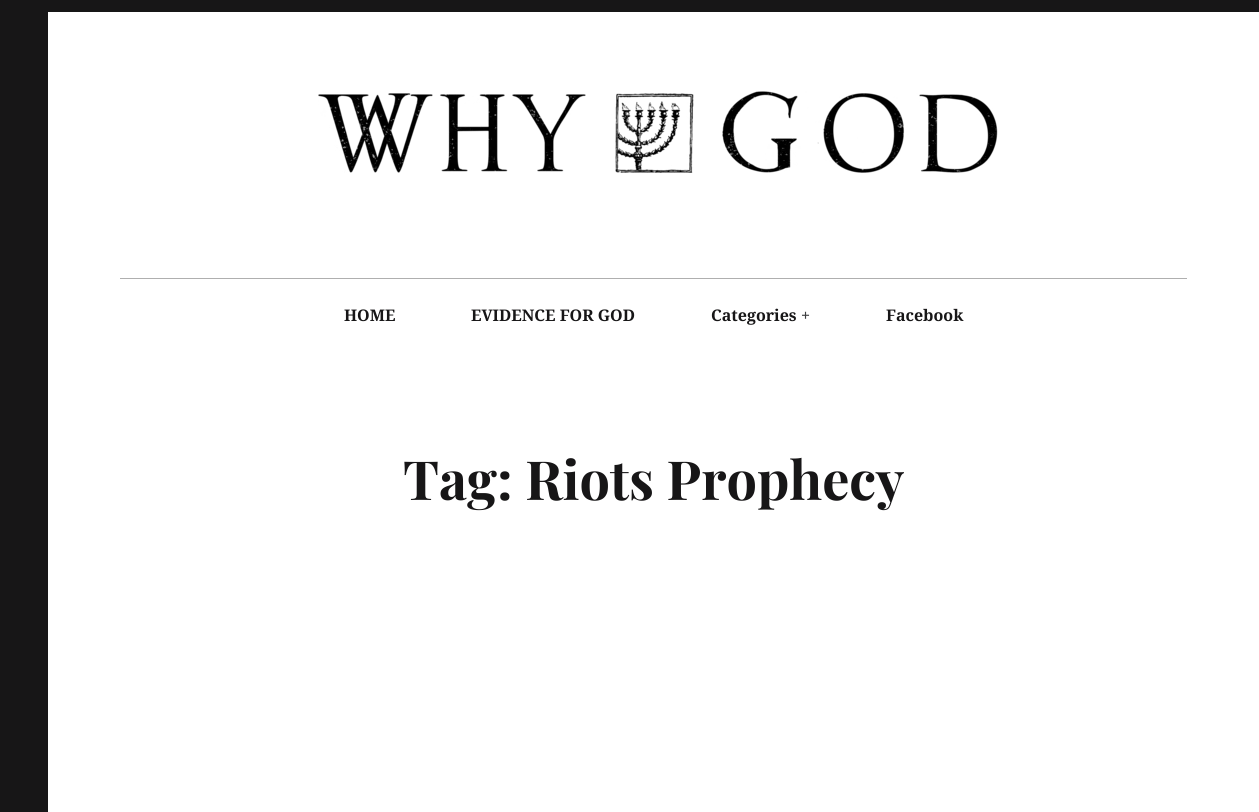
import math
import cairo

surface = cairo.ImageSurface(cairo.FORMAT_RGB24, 1259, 812)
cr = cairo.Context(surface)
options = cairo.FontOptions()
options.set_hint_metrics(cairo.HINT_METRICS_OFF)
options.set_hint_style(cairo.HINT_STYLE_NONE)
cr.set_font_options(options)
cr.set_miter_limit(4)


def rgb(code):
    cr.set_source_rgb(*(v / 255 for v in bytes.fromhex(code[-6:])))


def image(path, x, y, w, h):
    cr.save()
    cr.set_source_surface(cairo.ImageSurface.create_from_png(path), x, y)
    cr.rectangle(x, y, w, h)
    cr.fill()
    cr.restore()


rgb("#ffffff")
cr.paint()
rgb("#171617")
cr.rectangle(0, 0, 48, 812)
cr.fill()
cr.rectangle(48, 0, 1211, 12)
cr.fill()
image("img/1.png", 318, 91, 680, 82)
rgb("#afafaf")
cr.rectangle(120, 278, 1067, 1)
cr.fill()
cr.select_font_face("Noto Serif", cairo.FONT_SLANT_NORMAL, cairo.FONT_WEIGHT_BOLD)
cr.set_font_size(16)
rgb("#171617")
for x, y, s in [
    (344, 321, "HOME"),
    (471, 321, "EVIDENCE FOR GOD"),
    (711, 321, "Categories"),
]:
    cr.move_to(x, y)
    cr.show_text(s)
rgb("#3d3e40")
cr.move_to(801, 321)
cr.show_text("+")
rgb("#171617")
cr.move_to(886, 321)
cr.show_text("Facebook")
cr.select_font_face("Playfair Display", cairo.FONT_SLANT_NORMAL, cairo.FONT_WEIGHT_BOLD)
cr.set_font_size(54)
cr.move_to(403, 500)
cr.show_text("Tag: Riots Prophecy")
surface.write_to_png("page.png")
